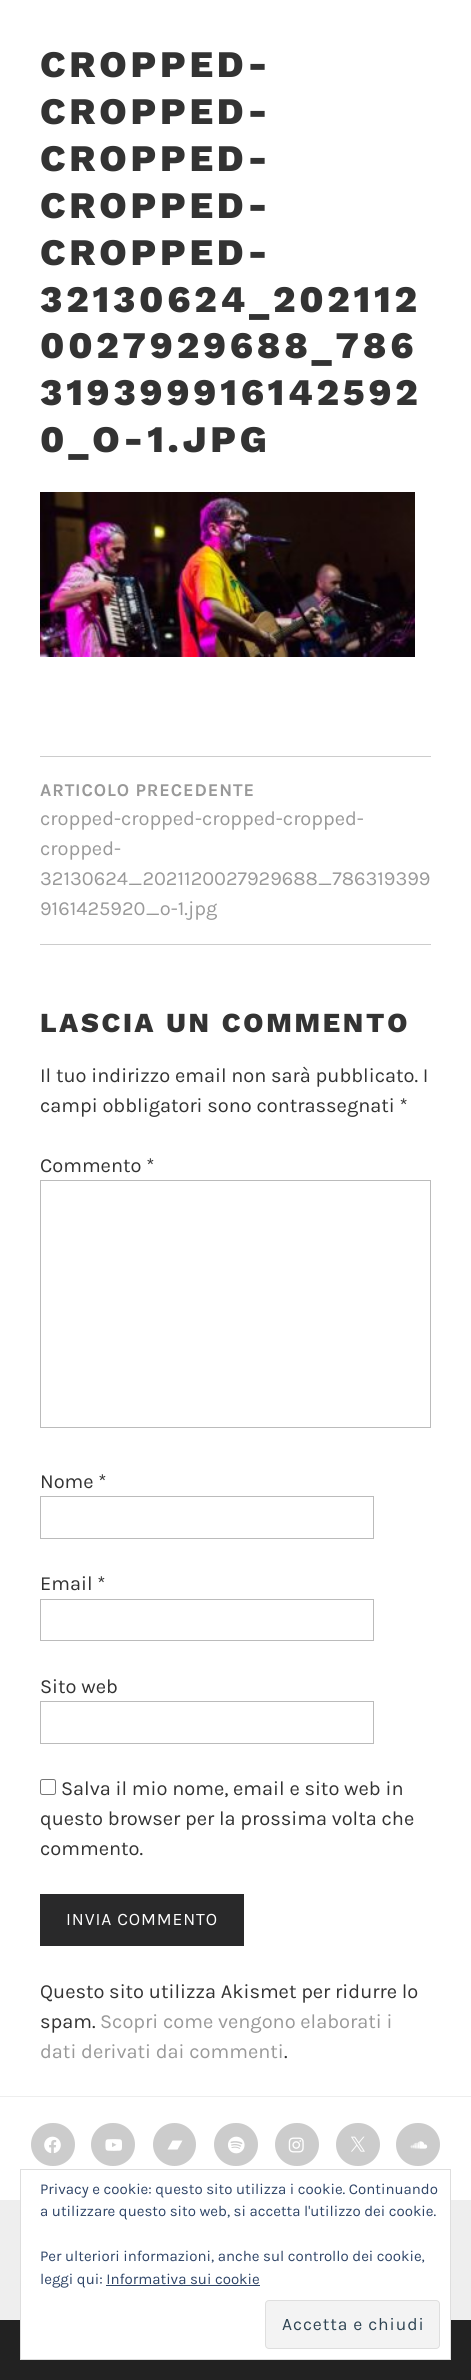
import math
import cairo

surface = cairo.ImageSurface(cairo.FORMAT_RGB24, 471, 2380)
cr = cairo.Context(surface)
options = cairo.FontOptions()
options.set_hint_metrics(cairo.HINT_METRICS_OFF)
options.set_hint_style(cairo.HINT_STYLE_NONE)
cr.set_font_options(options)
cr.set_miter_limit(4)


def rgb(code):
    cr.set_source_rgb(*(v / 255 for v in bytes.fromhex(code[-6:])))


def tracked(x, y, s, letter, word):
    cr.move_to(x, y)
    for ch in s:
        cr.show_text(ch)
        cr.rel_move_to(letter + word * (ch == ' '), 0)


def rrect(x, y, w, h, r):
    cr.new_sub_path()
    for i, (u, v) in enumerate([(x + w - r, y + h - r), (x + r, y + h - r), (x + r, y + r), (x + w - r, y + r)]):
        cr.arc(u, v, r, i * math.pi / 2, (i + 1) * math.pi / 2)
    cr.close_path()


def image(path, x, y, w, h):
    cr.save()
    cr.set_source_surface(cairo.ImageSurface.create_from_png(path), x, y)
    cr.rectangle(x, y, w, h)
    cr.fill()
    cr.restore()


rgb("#ffffff")
cr.paint()
image("img/1.png", 40, 492, 375, 165)
rgb("#cccccc")
cr.rectangle(40, 756, 391, 1)
cr.fill()
cr.rectangle(40, 944, 391, 1)
cr.fill()
cr.rectangle(40.5, 1180.5, 390, 247)
rgb("#bbbbbb")
cr.set_line_width(1)
cr.stroke()
cr.rectangle(40.5, 1496.5, 333, 42)
cr.stroke()
cr.rectangle(40.5, 1599.5, 333, 41)
cr.stroke()
cr.rectangle(40.5, 1701.5, 333, 42)
cr.stroke()
rrect(40.5, 1779.5, 15, 15, 2)
rgb("#767676")
cr.stroke()
rgb("#29292a")
cr.rectangle(40, 1894, 204, 52)
cr.fill()
rgb("#eeeeee")
cr.rectangle(0, 2096, 471, 1)
cr.fill()
rgb("#cccccc")
rrect(31, 2123, 44, 43, 21.5)
cr.fill()
image("img/2.png", 44, 2136, 17, 17)
rrect(91, 2123, 44, 43, 21.5)
cr.fill()
image("img/3.png", 105, 2139, 17, 12)
cr.arc(174.5, 2144.5, 21.5, 0, 2 * math.pi)
cr.fill()
rgb("#ffffff")
cr.new_path()
cr.move_to(177.5, 2149.5)
cr.line_to(167.5, 2149.5)
cr.line_to(172.5, 2140.5)
cr.line_to(182.5, 2140.5)
cr.line_to(177.5, 2149.5)
cr.fill()
rgb("#cccccc")
rrect(214, 2123, 44, 43, 21.5)
cr.fill()
image("img/4.png", 228, 2136, 17, 18)
rrect(275, 2123, 44, 43, 21.5)
cr.fill()
image("img/5.png", 288, 2137, 16, 16)
rrect(336, 2123, 44, 43, 21.5)
cr.fill()
image("img/6.png", 351, 2136, 14, 16)
rrect(396, 2123, 44, 43, 21.5)
cr.fill()
image("img/7.png", 410, 2141, 18, 8)
for x, y, w, h, color in [
    (0, 2200, 471, 120, "#eeeeee"),
    (0, 2320, 471, 60, "#222222"),
    (21, 2200, 429, 159, "#ffffff"),
]:
    rgb(color)
    cr.rectangle(x, y, w, h)
    cr.fill()
cr.rectangle(20.5, 2169.5, 430, 190)
rgb("#dedede")
cr.stroke()
rgb("#2e4467")
cr.rectangle(106, 2285, 154, 1)
cr.fill()
rgb("#f3f3f3")
rrect(265.5, 2300.5, 174, 48, 3.5)
cr.fill_preserve()
rgb("#dedede")
cr.stroke()
cr.select_font_face("Work Sans ExtraBold")
cr.set_font_size(37.5)
rgb("#333333")
for x, y, s in [
    (40, 77, "CROPPED-"),
    (40, 124, "CROPPED-"),
    (40, 171, "CROPPED-"),
    (40, 218, "CROPPED-"),
    (40, 265, "CROPPED-"),
    (40, 312, "32130624_202112"),
    (40, 358, "0027929688_786"),
    (40, 405, "319399916142592"),
    (40, 452, "0_O-1.JPG"),
]:
    tracked(x, y, s, 3.75, 0)
cr.select_font_face("Karla", cairo.FONT_SLANT_NORMAL, cairo.FONT_WEIGHT_BOLD)
cr.set_font_size(18)
rgb("#999999")
tracked(40, 796, "ARTICOLO PRECEDENTE", 0.9, 0)
cr.select_font_face("Karla")
cr.set_font_size(20)
for x, y, s in [
    (40, 825, "cropped-cropped-cropped-cropped-"),
    (40, 855, "cropped-"),
    (40, 885, "32130624_2021120027929688_786319399"),
    (40, 915, "9161425920_o-1.jpg"),
]:
    cr.move_to(x, y)
    cr.show_text(s)
cr.select_font_face("Work Sans ExtraBold")
cr.set_font_size(27.5)
rgb("#333333")
tracked(40, 1032, "LASCIA UN COMMENTO", 2.75, 0)
cr.select_font_face("Karla")
cr.set_font_size(20)
for x, y, s in [
    (40, 1082, "Il tuo indirizzo email non sarà pubblicato. I"),
    (40, 1112, "campi obbligatori sono contrassegnati *"),
    (40, 1172, "Commento *"),
    (40, 1488, "Nome *"),
    (40, 1590, "Email *"),
    (40, 1693, "Sito web"),
    (61, 1795, "Salva il mio nome, email e sito web in"),
    (40, 1825, "questo browser per la prossima volta che"),
    (40, 1855, "commento."),
]:
    cr.move_to(x, y)
    cr.show_text(s)
cr.set_font_size(17.5)
rgb("#ffffff")
tracked(66, 1925, "INVIA COMMENTO", 0.9, 0)
cr.set_font_size(20)
rgb("#333333")
cr.move_to(40, 1998)
cr.show_text("Questo sito utilizza Akismet per ridurre lo")
cr.move_to(40, 2028)
cr.show_text("spam.")
rgb("#999999")
cr.move_to(100, 2028)
cr.show_text("Scopri come vengono elaborati i")
cr.move_to(40, 2058)
cr.show_text("dati derivati dai commenti")
rgb("#333333")
cr.move_to(284, 2058)
cr.show_text(".")
cr.set_font_size(15)
rgb("#2e4467")
for x, y, s in [
    (40, 2194, "Privacy e cookie: questo sito utilizza i cookie. Continuando"),
    (40, 2216, "a utilizzare questo sito web, si accetta l'utilizzo dei cookie."),
    (40, 2261, "Per ulteriori informazioni, anche sul controllo dei cookie,"),
    (40, 2284, "leggi qui: Informativa sui cookie"),
]:
    cr.move_to(x, y)
    cr.show_text(s)
cr.set_font_size(17.5)
rgb("#2e4453")
tracked(282, 2330, "Accetta e chiudi", 0.9, 0)
surface.write_to_png("page.png")
